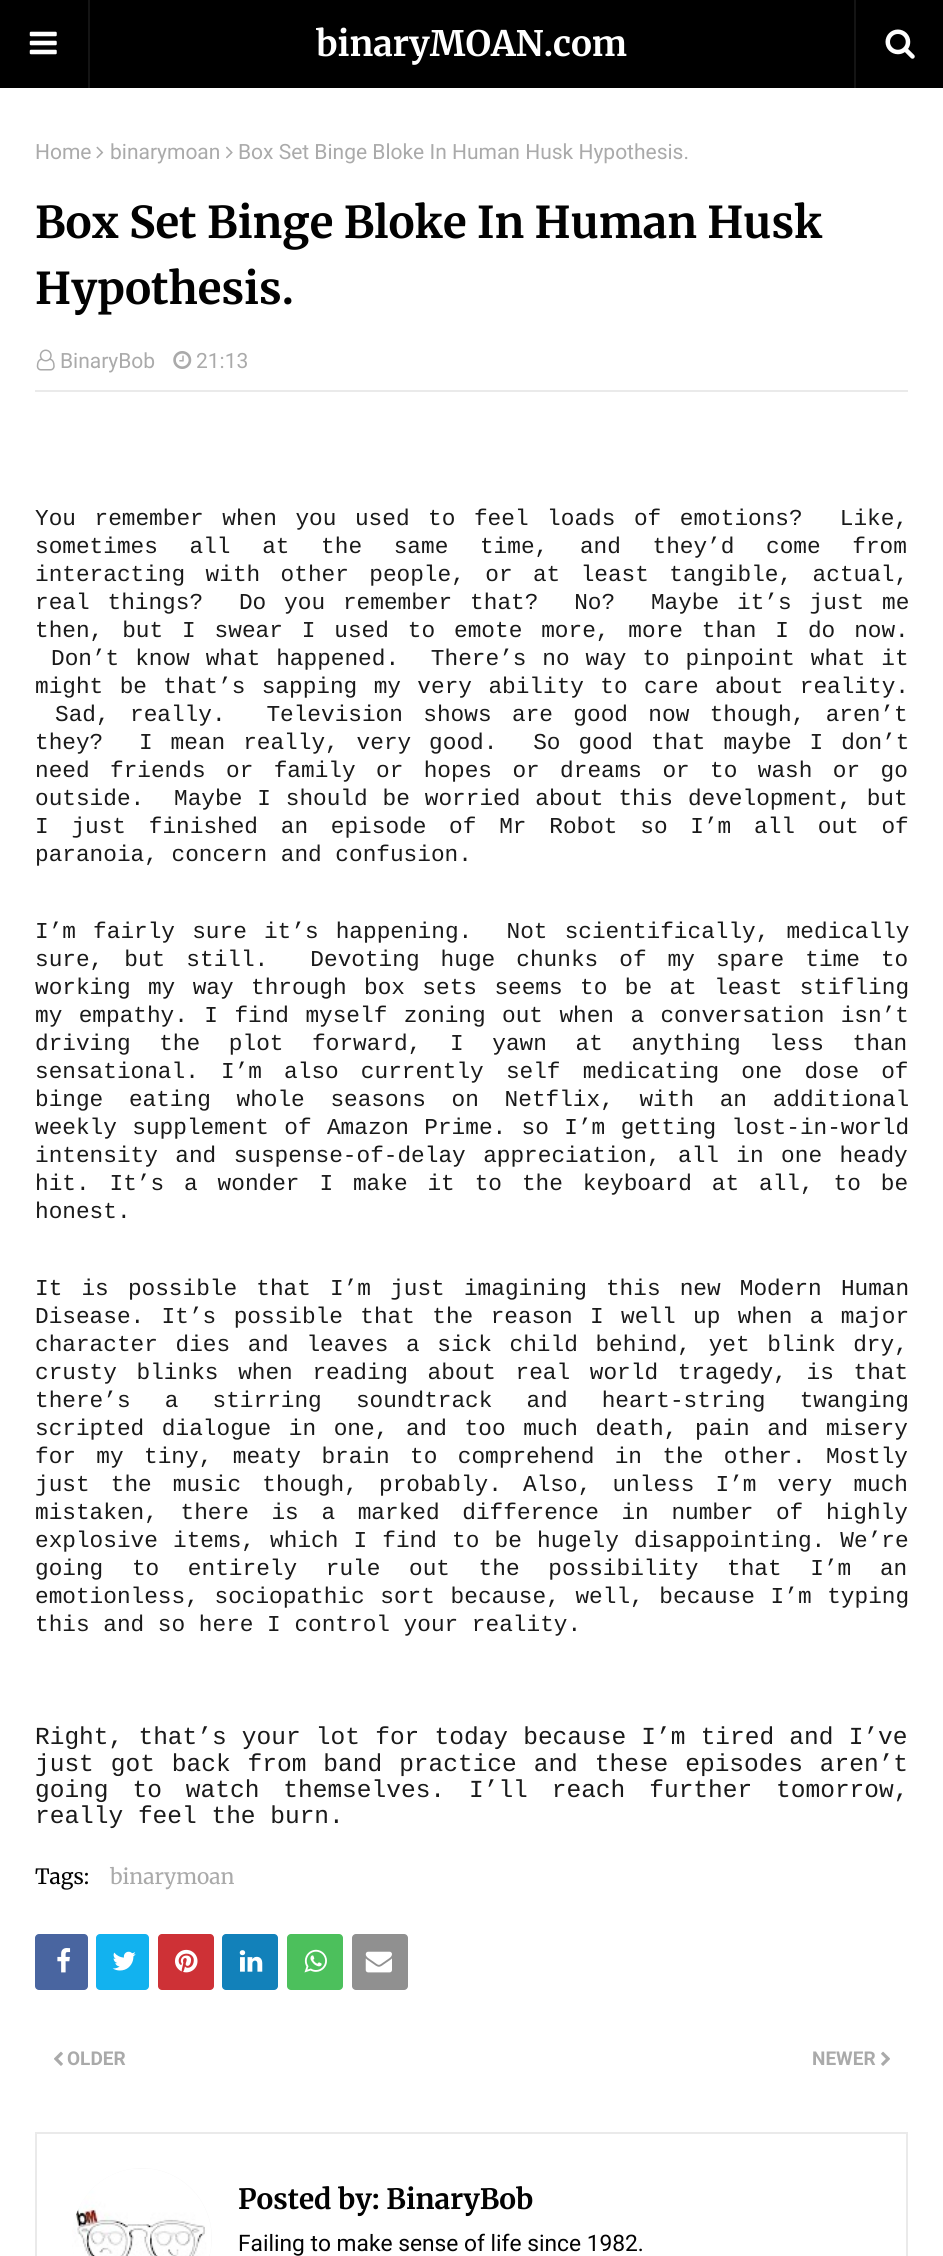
import math
import cairo

surface = cairo.ImageSurface(cairo.FORMAT_RGB24, 943, 2256)
cr = cairo.Context(surface)
options = cairo.FontOptions()
options.set_hint_metrics(cairo.HINT_METRICS_OFF)
options.set_hint_style(cairo.HINT_STYLE_NONE)
cr.set_font_options(options)
cr.set_miter_limit(4)


def rgb(code):
    cr.set_source_rgb(*(v / 255 for v in bytes.fromhex(code[-6:])))


def tracked(x, y, s, letter, word):
    cr.move_to(x, y)
    for ch in s:
        cr.show_text(ch)
        cr.rel_move_to(letter + word * (ch == ' '), 0)


def rrect(x, y, w, h, r):
    cr.new_sub_path()
    for i, (u, v) in enumerate([(x + w - r, y + h - r), (x + r, y + h - r), (x + r, y + r), (x + w - r, y + r)]):
        cr.arc(u, v, r, i * math.pi / 2, (i + 1) * math.pi / 2)
    cr.close_path()


def image(path, x, y, w, h):
    cr.save()
    cr.set_source_surface(cairo.ImageSurface.create_from_png(path), x, y)
    cr.rectangle(x, y, w, h)
    cr.fill()
    cr.restore()


rgb("#ffffff")
cr.paint()
rgb("#000000")
cr.rectangle(0, 0, 943, 88)
cr.fill()
rgb("#141414")
cr.rectangle(88, 0, 2, 88)
cr.fill()
image("img/1.png", 29, 31, 28, 24)
cr.rectangle(854, 0, 2, 88)
cr.fill()
image("img/2.png", 885, 29, 30, 30)
image("img/3.png", 96, 146, 8, 13)
image("img/4.png", 226, 146, 7, 13)
rgb("#eaeaea")
cr.rectangle(35, 390, 873, 2)
cr.fill()
image("img/5.png", 36, 349, 19, 22)
image("img/6.png", 173, 351, 19, 18)
rgb("#4965a0")
rrect(35, 1934, 53, 56, 4)
cr.fill()
image("img/7.png", 57, 1948, 14, 25)
rgb("#12b2ef")
rrect(96, 1934, 53, 56, 4)
cr.fill()
image("img/8.png", 112, 1951, 24, 20)
rgb("#ce3136")
rrect(158, 1934, 56, 56, 4)
cr.fill()
image("img/9.png", 175, 1949, 23, 24)
rgb("#1281ba")
rrect(222, 1934, 56, 56, 4)
cr.fill()
image("img/10.png", 239, 1950, 24, 22)
rgb("#4cc05c")
rrect(287, 1934, 56, 56, 4)
cr.fill()
image("img/11.png", 304, 1949, 23, 24)
rgb("#909090")
rrect(352, 1934, 56, 56, 4)
cr.fill()
image("img/12.png", 365, 1951, 27, 22)
image("img/13.png", 54, 2051, 9, 15)
image("img/14.png", 881, 2051, 9, 15)
cr.rectangle(36, 2133, 871, 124)
rgb("#eaeaea")
cr.stroke()
rgb("#f9f9f9")
cr.arc(142, 2238, 70, 0, 2 * math.pi)
cr.fill()
image("img/15.png", 72, 2169, 139, 87)
cr.select_font_face("Merriweather", cairo.FONT_SLANT_NORMAL, cairo.FONT_WEIGHT_BOLD)
cr.set_font_size(35)
rgb("#ffffff")
cr.move_to(316, 56)
cr.show_text("binaryMOAN.com")
cr.select_font_face("Roboto")
cr.set_font_size(21)
rgb("#aaaaaa")
for x, y, s in [
    (35, 159, "Home"),
    (110, 159, "binarymoan"),
    (238, 159, "Box Set Binge Bloke In Human Husk Hypothesis."),
]:
    cr.move_to(x, y)
    cr.show_text(s)
cr.select_font_face("Merriweather", cairo.FONT_SLANT_NORMAL, cairo.FONT_WEIGHT_BOLD)
cr.set_font_size(43.75)
rgb("#020202")
cr.move_to(35, 238)
cr.show_text("Box Set Binge Bloke In Human Husk")
cr.move_to(35, 304)
cr.show_text("Hypothesis.")
cr.select_font_face("Roboto")
cr.set_font_size(21)
rgb("#aaaaaa")
cr.move_to(60, 368)
cr.show_text("BinaryBob")
cr.move_to(196, 368)
cr.show_text("21:13")
cr.select_font_face("Liberation Mono")
cr.set_font_size(22.75)
rgb("#1a1a1a")
tracked(35, 525, "You remember when you used to feel loads of emotions?  Like,", 0, 4.9)
tracked(35, 553, "sometimes all at the same time, and they’d come from", 0, 18)
tracked(35, 581, "interacting with other people, or at least tangible, actual,", 0, 6.75)
tracked(35, 609, "real things?  Do you remember that?  No?  Maybe it’s just me", 0, 4.25)
tracked(35, 637, "then, but I swear I used to emote more, more than I do now.", 0, 5.25)
tracked(51, 665, "Don’t know what happened.  There’s no way to pinpoint what it", 0, 2.25)
tracked(35, 693, "might be that’s sapping my very ability to care about reality.", 0, 2.75)
tracked(55, 721, "Sad, really.  Television shows are good now though, aren’t", 0, 6.75)
tracked(35, 749, "they?  I mean really, very good.  So good that maybe I don’t", 0, 4.25)
tracked(35, 777, "need friends or family or hopes or dreams or to wash or go", 0, 6.75)
tracked(35, 805, "outside.  Maybe I should be worried about this development, but", 0, 1.25)
tracked(35, 833, "I just finished an episode of Mr Robot so I’m all out of", 0, 9.1)
cr.move_to(35, 861)
cr.show_text("paranoia, concern and confusion.")
tracked(35, 938, "I’m fairly sure it’s happening.  Not scientifically, medically", 0, 3.5)
tracked(35, 966, "sure, but still.  Devoting huge chunks of my spare time to", 0, 7.4)
tracked(35, 994, "working my way through box sets seems to be at least stifling", 0, 3.75)
tracked(35, 1022, "my empathy. I find myself zoning out when a conversation isn’t", 0, 2.75)
tracked(35, 1050, "driving the plot forward, I yawn at anything less than", 0, 15)
tracked(35, 1078, "sensational. I’m also currently self medicating one dose of", 0, 8.5)
tracked(35, 1106, "binge eating whole seasons on Netflix, with an additional", 0, 12)
tracked(35, 1134, "weekly supplement of Amazon Prime. so I’m getting lost-in-world", 0, 1.75)
tracked(35, 1162, "intensity and suspense-of-delay appreciation, all in one heady", 0, 3.75)
tracked(35, 1190, "hit. It’s a wonder I make it to the keyboard at all, to be", 0, 6.25)
cr.move_to(35, 1218)
cr.show_text("honest.")
tracked(35, 1295, "It is possible that I’m just imagining this new Modern Human", 0, 5.5)
tracked(35, 1323, "Disease. It’s possible that the reason I well up when a major", 0, 3.75)
tracked(35, 1351, "character dies and leaves a sick child behind, yet blink dry,", 0, 4)
tracked(35, 1379, "crusty blinks when reading about real world tragedy, is that", 0, 6)
tracked(35, 1407, "there’s a stirring soundtrack and heart-string twanging", 0, 20.5)
tracked(35, 1435, "scripted dialogue in one, and too much death, pain and misery", 0, 4)
tracked(35, 1463, "for my tiny, meaty brain to comprehend in the other. Mostly", 0, 6.75)
tracked(35, 1491, "just the music though, probably. Also, unless I’m very much", 0, 7.5)
tracked(35, 1519, "mistaken, there is a marked difference in number of highly", 0, 9)
tracked(35, 1547, "explosive items, which I find to be hugely disappointing. We’re", 0, 1.5)
tracked(35, 1575, "going to entirely rule out the possibility that I’m an", 0, 15)
tracked(35, 1603, "emotionless, sociopathic sort because, well, because I’m typing", 0, 2)
cr.move_to(35, 1631)
cr.show_text("this and so here I control your reality.")
cr.set_font_size(24.5)
tracked(35, 1744, "Right, that’s your lot for today because I’m tired and I’ve", 0, 0.5)
tracked(35, 1771, "just got back from band practice and these episodes aren’t", 0, 2.25)
tracked(35, 1797, "going to watch themselves. I’ll reach further tomorrow,", 0, 9.25)
cr.move_to(35, 1823)
cr.show_text("really feel the burn.")
cr.select_font_face("Merriweather")
cr.set_font_size(21)
rgb("#020202")
cr.move_to(35, 1884)
cr.show_text("Tags:")
rgb("#aaaaaa")
cr.move_to(110, 1884)
cr.show_text("binarymoan")
cr.select_font_face("Roboto", cairo.FONT_SLANT_NORMAL, cairo.FONT_WEIGHT_BOLD)
cr.set_font_size(19)
cr.move_to(67, 2065)
cr.show_text("OLDER")
cr.move_to(812, 2065)
cr.show_text("NEWER")
cr.select_font_face("Merriweather", cairo.FONT_SLANT_NORMAL, cairo.FONT_WEIGHT_BOLD)
cr.set_font_size(28)
rgb("#020202")
cr.move_to(238, 2209)
cr.show_text("Posted by: BinaryBob")
cr.select_font_face("Roboto")
cr.set_font_size(22.75)
cr.move_to(238, 2251)
cr.show_text("Failing to make sense of life since 1982.")
surface.write_to_png("page.png")
